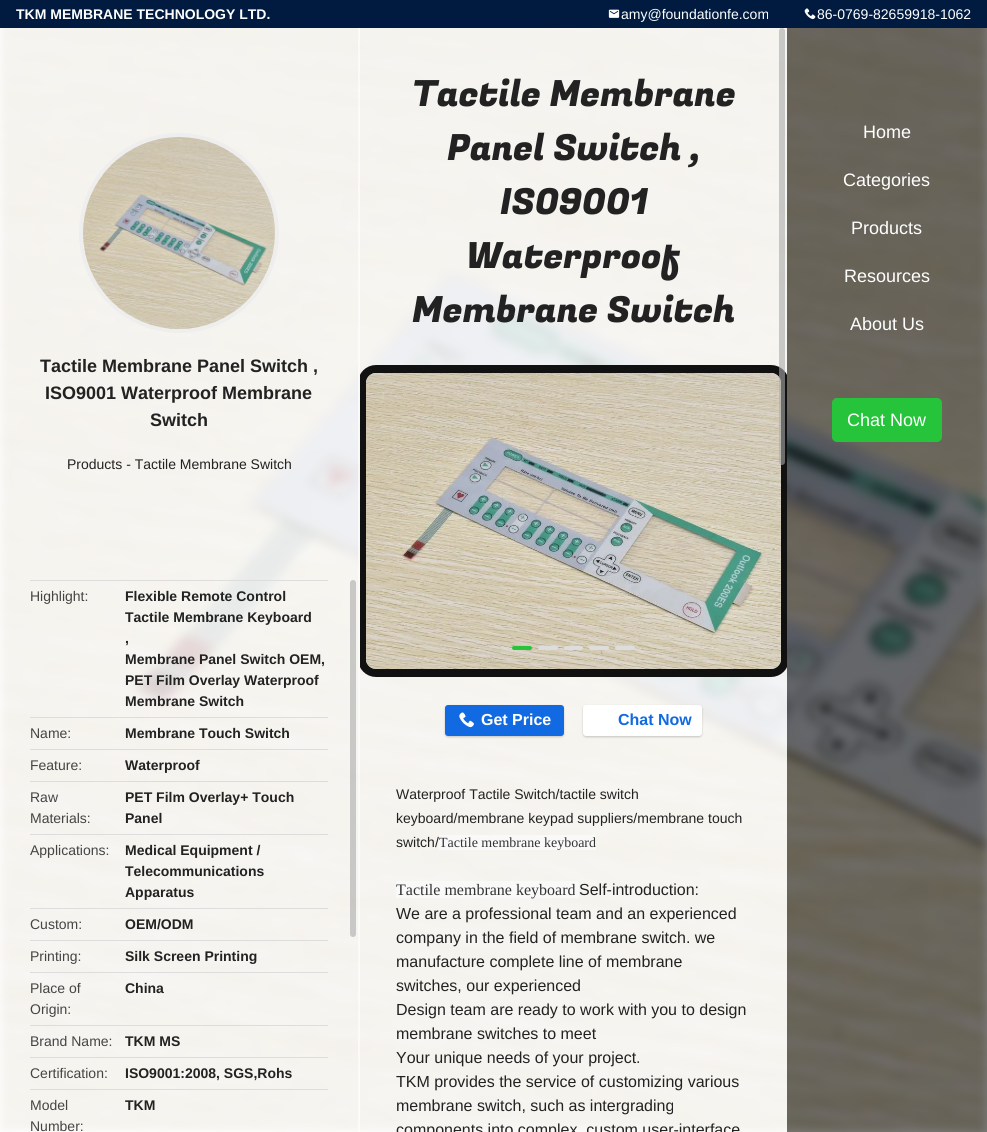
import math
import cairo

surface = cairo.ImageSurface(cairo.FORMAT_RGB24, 987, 1132)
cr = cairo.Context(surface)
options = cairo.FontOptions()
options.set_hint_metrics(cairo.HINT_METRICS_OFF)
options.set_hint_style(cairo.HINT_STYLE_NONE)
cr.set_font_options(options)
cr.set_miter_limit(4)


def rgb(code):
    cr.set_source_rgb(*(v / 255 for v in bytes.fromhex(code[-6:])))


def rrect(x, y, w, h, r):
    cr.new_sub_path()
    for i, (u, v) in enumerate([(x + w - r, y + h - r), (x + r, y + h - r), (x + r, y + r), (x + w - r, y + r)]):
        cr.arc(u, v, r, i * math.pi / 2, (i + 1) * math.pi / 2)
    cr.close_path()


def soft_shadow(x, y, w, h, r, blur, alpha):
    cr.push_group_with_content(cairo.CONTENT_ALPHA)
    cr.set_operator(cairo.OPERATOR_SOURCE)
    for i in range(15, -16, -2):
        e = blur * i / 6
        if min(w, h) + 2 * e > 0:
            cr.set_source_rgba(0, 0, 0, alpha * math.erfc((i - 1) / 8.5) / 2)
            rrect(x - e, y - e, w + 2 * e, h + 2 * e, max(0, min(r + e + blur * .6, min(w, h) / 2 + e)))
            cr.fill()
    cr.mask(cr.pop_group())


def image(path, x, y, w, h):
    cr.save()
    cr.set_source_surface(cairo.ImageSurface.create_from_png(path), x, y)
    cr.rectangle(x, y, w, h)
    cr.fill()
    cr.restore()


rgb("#ffffff")
cr.paint()
rgb("#001b3f")
cr.rectangle(0, 0, 987, 28)
cr.fill()
image("img/1.png", 608, 9, 12, 9)
image("img/2.png", 804, 8, 12, 12)
image("img/3.png", 0, 28, 987, 1104)
cr.set_source_rgba(1, 1, 1, 0.8)
cr.rectangle(360, 28, 427, 1104)
cr.fill()
cr.set_source_rgba(0, 0, 0, 0.5)
cr.rectangle(787, 28, 200, 1104)
cr.fill()
cr.set_source_rgba(1, 1, 1, 0.8)
cr.rectangle(0, 28, 360, 1104)
cr.fill()
cr.set_source_rgba(1, 1, 1, 0.6)
cr.rectangle(358, 28, 2, 1104)
cr.fill()
cr.save()
cr.rectangle(360, 28, 427, 1104)
cr.clip()
rrect(362, 369, 423, 304, 14)
rgb("#111111")
cr.set_line_width(8)
cr.stroke()
cr.restore()
image("img/4.png", 366, 373, 415, 296)
cr.set_source_rgba(0.667, 0.667, 0.667, 0.6)
rrect(779, 28, 6, 437, 3)
cr.fill()
rgb("#26c43a")
rrect(512, 646, 20, 4, 2)
cr.fill()
rgb("#dddddd")
rrect(538, 646, 20, 4, 2)
cr.fill()
rrect(564, 646, 19, 4, 2)
cr.fill()
rrect(589, 646, 20, 4, 2)
cr.fill()
rrect(615, 646, 20, 4, 2)
cr.fill()
rgb("#000000")
soft_shadow(445, 706, 119, 31, 3, 1, 0.2)
rgb("#126ae2")
rrect(445, 705, 119, 31, 3)
cr.fill()
image("img/5.png", 459, 712, 15, 16)
rgb("#000000")
soft_shadow(583, 706, 119, 31, 3, 1, 0.2)
rgb("#ffffff")
rrect(583, 705, 119, 31, 3)
cr.fill()
rgb("#f9f9f9")
cr.rectangle(439, 835, 157, 15)
cr.fill()
cr.rectangle(396, 881, 183, 17)
cr.fill()
rgb("#26c43a")
rrect(832, 398, 110, 44, 5)
cr.fill()
cr.arc(179, 233, 98, 0, 2 * math.pi)
rgb("#eeeeee")
cr.set_line_width(4)
cr.stroke()
image("img/6.png", 83, 137, 192, 192)
for x, y, w, h, color in [
    (30, 580, 298, 1, "#dddddd"),
    (30, 717, 298, 1, "#dddddd"),
    (30, 749, 298, 1, "#dddddd"),
    (30, 781, 298, 1, "#dddddd"),
    (30, 834, 298, 1, "#dddddd"),
    (30, 908, 298, 1, "#dddddd"),
    (30, 940, 298, 1, "#dddddd"),
    (30, 972, 298, 1, "#dddddd"),
    (30, 1025, 298, 1, "#dddddd"),
    (30, 1057, 298, 1, "#dddddd"),
    (30, 1089, 298, 1, "#dddddd"),
]:
    rgb(color)
    cr.rectangle(x, y, w, h)
    cr.fill()
cr.set_source_rgba(0.667, 0.667, 0.667, 0.6)
rrect(350, 580, 6, 357, 3)
cr.fill()
cr.select_font_face("Liberation Sans", cairo.FONT_SLANT_NORMAL, cairo.FONT_WEIGHT_BOLD)
cr.set_font_size(14)
rgb("#ffffff")
cr.move_to(16, 19)
cr.show_text("TKM MEMBRANE TECHNOLOGY LTD.")
cr.select_font_face("Liberation Sans")
cr.move_to(621, 19)
cr.show_text("amy@foundationfe.com")
cr.move_to(817, 19)
cr.show_text("86-0769-82659918-1062")
cr.select_font_face("Fugaz One")
cr.set_font_size(36)
rgb("#222222")
for x, y, s in [
    (412, 106, "Tactile Membrane"),
    (447, 160, "Panel Switch ,"),
    (500, 214, "ISO9001"),
    (466, 268, "Waterproof"),
    (412, 322, "Membrane Switch"),
]:
    cr.move_to(x, y)
    cr.show_text(s)
cr.select_font_face("Liberation Sans", cairo.FONT_SLANT_NORMAL, cairo.FONT_WEIGHT_BOLD)
cr.set_font_size(16)
rgb("#ffffff")
cr.move_to(481, 725)
cr.show_text("Get Price")
rgb("#126ae2")
cr.move_to(618, 725)
cr.show_text("Chat Now")
cr.select_font_face("Liberation Sans")
cr.set_font_size(14)
rgb("#222222")
for x, y, s in [
    (396, 799, "Waterproof Tactile Switch/tactile switch"),
    (396, 823, "keyboard/membrane keypad suppliers/membrane touch"),
    (396, 847, "switch/"),
]:
    cr.move_to(x, y)
    cr.show_text(s)
cr.select_font_face("Liberation Serif")
rgb("#333333")
cr.move_to(439, 847)
cr.show_text("Tactile membrane keyboard")
cr.set_font_size(16)
cr.move_to(396, 895)
cr.show_text("Tactile membrane keyboard")
cr.select_font_face("Liberation Sans")
rgb("#222222")
for x, y, s in [
    (579, 895, "Self-introduction:"),
    (396, 919, "We are a professional team and an experienced"),
    (396, 943, "company in the field of membrane switch. we"),
    (396, 967, "manufacture complete line of membrane"),
    (396, 991, "switches, our experienced"),
    (396, 1015, "Design team are ready to work with you to design"),
    (396, 1039, "membrane switches to meet"),
    (396, 1063, "Your unique needs of your project"),
]:
    cr.move_to(x, y)
    cr.show_text(s)
rgb("#333333")
cr.move_to(636, 1063)
cr.show_text(".")
rgb("#222222")
for x, y, s in [
    (396, 1087, "TKM provides the service of customizing various"),
    (396, 1111, "membrane switch, such as intergrading"),
    (396, 1135, "components into complex, custom user-interface"),
]:
    cr.move_to(x, y)
    cr.show_text(s)
cr.set_font_size(18)
rgb("#ffffff")
for x, y, s in [
    (863, 138, "Home"),
    (843, 186, "Categories"),
    (851, 234, "Products"),
    (844, 282, "Resources"),
    (850, 330, "About Us"),
    (847, 426, "Chat Now"),
]:
    cr.move_to(x, y)
    cr.show_text(s)
cr.select_font_face("Liberation Sans", cairo.FONT_SLANT_NORMAL, cairo.FONT_WEIGHT_BOLD)
rgb("#222222")
for x, y, s in [
    (40, 372, "Tactile Membrane Panel Switch ,"),
    (45, 399, "ISO9001 Waterproof Membrane"),
    (150, 426, "Switch"),
]:
    cr.move_to(x, y)
    cr.show_text(s)
cr.select_font_face("Liberation Sans")
cr.set_font_size(14)
cr.move_to(67, 469)
cr.show_text("Products - Tactile Membrane Switch")
rgb("#444444")
cr.move_to(30, 601)
cr.show_text("Highlight:")
cr.select_font_face("Liberation Sans", cairo.FONT_SLANT_NORMAL, cairo.FONT_WEIGHT_BOLD)
rgb("#222222")
for x, y, s in [
    (125, 601, "Flexible Remote Control"),
    (125, 622, "Tactile Membrane Keyboard"),
    (125, 643, ","),
    (125, 664, "Membrane Panel Switch OEM,"),
    (125, 685, "PET Film Overlay Waterproof"),
    (125, 706, "Membrane Switch"),
]:
    cr.move_to(x, y)
    cr.show_text(s)
cr.select_font_face("Liberation Sans")
rgb("#444444")
cr.move_to(30, 738)
cr.show_text("Name:")
cr.select_font_face("Liberation Sans", cairo.FONT_SLANT_NORMAL, cairo.FONT_WEIGHT_BOLD)
rgb("#222222")
cr.move_to(125, 738)
cr.show_text("Membrane Touch Switch")
cr.select_font_face("Liberation Sans")
rgb("#444444")
cr.move_to(30, 770)
cr.show_text("Feature:")
cr.select_font_face("Liberation Sans", cairo.FONT_SLANT_NORMAL, cairo.FONT_WEIGHT_BOLD)
rgb("#222222")
cr.move_to(125, 770)
cr.show_text("Waterproof")
cr.select_font_face("Liberation Sans")
rgb("#444444")
cr.move_to(30, 802)
cr.show_text("Raw")
cr.move_to(30, 823)
cr.show_text("Materials:")
cr.select_font_face("Liberation Sans", cairo.FONT_SLANT_NORMAL, cairo.FONT_WEIGHT_BOLD)
rgb("#222222")
cr.move_to(125, 802)
cr.show_text("PET Film Overlay+ Touch")
cr.move_to(125, 823)
cr.show_text("Panel")
cr.select_font_face("Liberation Sans")
rgb("#444444")
cr.move_to(30, 855)
cr.show_text("Applications:")
cr.select_font_face("Liberation Sans", cairo.FONT_SLANT_NORMAL, cairo.FONT_WEIGHT_BOLD)
rgb("#222222")
for x, y, s in [
    (125, 855, "Medical Equipment /"),
    (125, 876, "Telecommunications"),
    (125, 897, "Apparatus"),
]:
    cr.move_to(x, y)
    cr.show_text(s)
cr.select_font_face("Liberation Sans")
rgb("#444444")
cr.move_to(30, 929)
cr.show_text("Custom:")
cr.select_font_face("Liberation Sans", cairo.FONT_SLANT_NORMAL, cairo.FONT_WEIGHT_BOLD)
rgb("#222222")
cr.move_to(125, 929)
cr.show_text("OEM/ODM")
cr.select_font_face("Liberation Sans")
rgb("#444444")
cr.move_to(30, 961)
cr.show_text("Printing:")
cr.select_font_face("Liberation Sans", cairo.FONT_SLANT_NORMAL, cairo.FONT_WEIGHT_BOLD)
rgb("#222222")
cr.move_to(125, 961)
cr.show_text("Silk Screen Printing")
cr.select_font_face("Liberation Sans")
rgb("#444444")
cr.move_to(30, 993)
cr.show_text("Place of")
cr.move_to(30, 1014)
cr.show_text("Origin:")
cr.select_font_face("Liberation Sans", cairo.FONT_SLANT_NORMAL, cairo.FONT_WEIGHT_BOLD)
rgb("#222222")
cr.move_to(125, 993)
cr.show_text("China")
cr.select_font_face("Liberation Sans")
rgb("#444444")
cr.move_to(30, 1046)
cr.show_text("Brand Name:")
cr.select_font_face("Liberation Sans", cairo.FONT_SLANT_NORMAL, cairo.FONT_WEIGHT_BOLD)
rgb("#222222")
cr.move_to(125, 1046)
cr.show_text("TKM MS")
cr.select_font_face("Liberation Sans")
rgb("#444444")
cr.move_to(30, 1078)
cr.show_text("Certification:")
cr.select_font_face("Liberation Sans", cairo.FONT_SLANT_NORMAL, cairo.FONT_WEIGHT_BOLD)
rgb("#222222")
cr.move_to(125, 1078)
cr.show_text("ISO9001:2008, SGS,Rohs")
cr.select_font_face("Liberation Sans")
rgb("#444444")
cr.move_to(30, 1110)
cr.show_text("Model")
cr.move_to(30, 1131)
cr.show_text("Number:")
cr.select_font_face("Liberation Sans", cairo.FONT_SLANT_NORMAL, cairo.FONT_WEIGHT_BOLD)
rgb("#222222")
cr.move_to(125, 1110)
cr.show_text("TKM")
surface.write_to_png("page.png")
